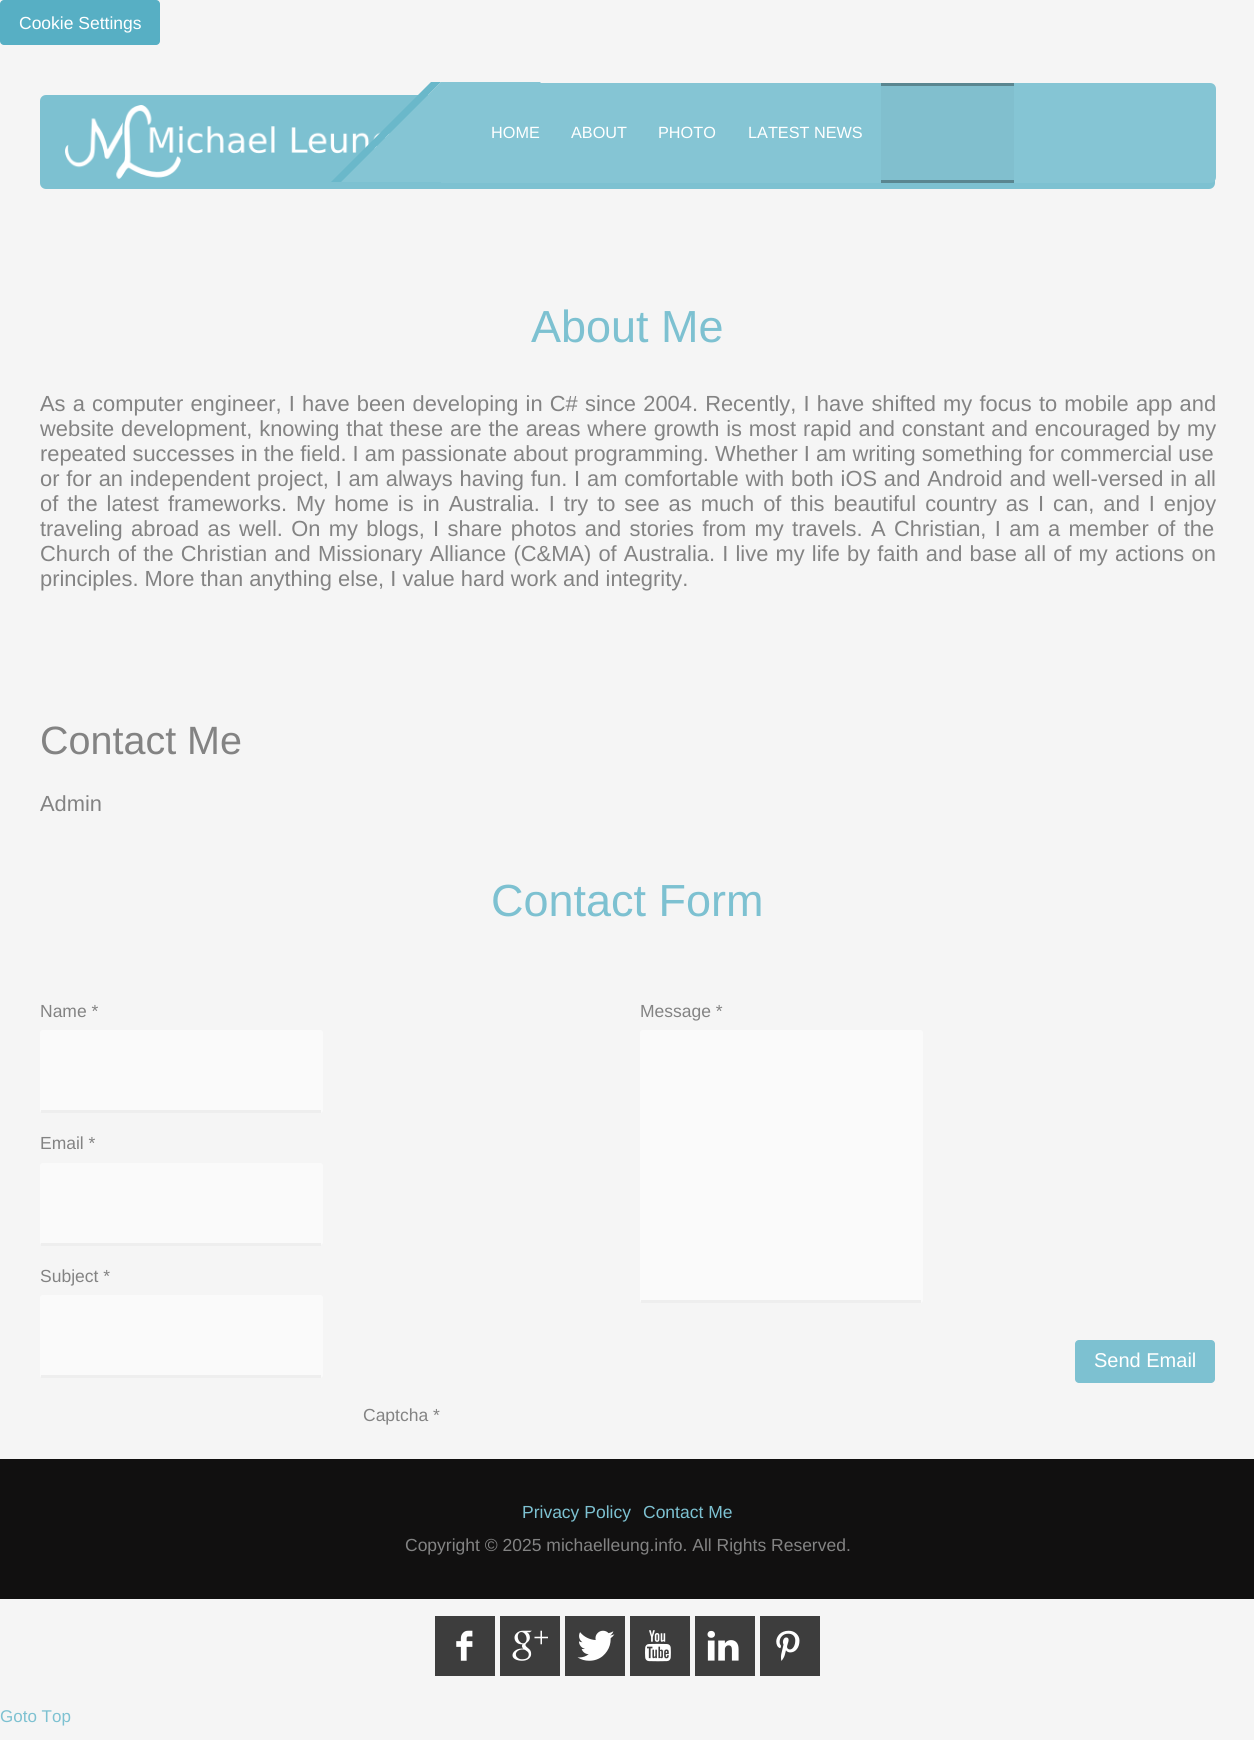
import math
import cairo

surface = cairo.ImageSurface(cairo.FORMAT_RGB24, 1254, 1740)
cr = cairo.Context(surface)
options = cairo.FontOptions()
options.set_hint_metrics(cairo.HINT_METRICS_OFF)
options.set_hint_style(cairo.HINT_STYLE_NONE)
cr.set_font_options(options)
cr.set_miter_limit(4)


def rgb(code):
    cr.set_source_rgb(*(v / 255 for v in bytes.fromhex(code[-6:])))


def tracked(x, y, s, letter, word):
    cr.move_to(x, y)
    for ch in s:
        cr.show_text(ch)
        cr.rel_move_to(letter + word * (ch == ' '), 0)


def rrect(x, y, w, h, r):
    cr.new_sub_path()
    for i, (u, v) in enumerate([(x + w - r, y + h - r), (x + r, y + h - r), (x + r, y + r), (x + w - r, y + r)]):
        cr.arc(u, v, r, i * math.pi / 2, (i + 1) * math.pi / 2)
    cr.close_path()


def image(path, x, y, w, h):
    cr.save()
    cr.set_source_surface(cairo.ImageSurface.create_from_png(path), x, y)
    cr.rectangle(x, y, w, h)
    cr.fill()
    cr.restore()


rgb("#f5f5f5")
cr.paint()
rgb("#57afc4")
rrect(0, 0, 160, 45, 4)
cr.fill()
rgb("#7dc1d1")
rrect(40, 95, 1175, 94, 6)
cr.fill()
image("img/1.png", 65, 105, 325, 74)
rgb("#85c5d4")
cr.new_path()
cr.move_to(441, 83)
cr.line_to(1210, 83)
cr.curve_to(1213.5, 83, 1216, 85.5, 1216, 89)
cr.line_to(1216, 177)
cr.curve_to(1216, 180.5, 1213.5, 183, 1210, 183)
cr.line_to(441, 183)
cr.close_path()
cr.fill()
cr.new_path()
cr.move_to(441, 82)
cr.line_to(541, 82)
cr.line_to(441, 182)
cr.line_to(341, 182)
cr.close_path()
cr.fill()
rgb("#6ab8ca")
cr.new_path()
cr.move_to(431, 82)
cr.line_to(441, 82)
cr.line_to(341, 182)
cr.line_to(331, 182)
cr.close_path()
cr.fill()
for x, y, w, h, color in [
    (881, 86, 133, 94, "#81bfce"),
    (881, 83, 133, 3, "#5a8690"),
    (881, 180, 133, 3, "#5a8690"),
]:
    rgb(color)
    cr.rectangle(x, y, w, h)
    cr.fill()
rgb("#fafafa")
rrect(40, 1030, 283, 83, 2.5)
cr.fill()
rgb("#eeeeee")
cr.rectangle(41, 1110, 280, 3)
cr.fill()
rgb("#fafafa")
rrect(40, 1163, 283, 82, 2.5)
cr.fill()
rgb("#eeeeee")
cr.rectangle(41, 1243, 280, 3)
cr.fill()
rgb("#fafafa")
rrect(40, 1295, 283, 83, 2.5)
cr.fill()
rgb("#eeeeee")
cr.rectangle(41, 1375, 280, 3)
cr.fill()
rgb("#fafafa")
rrect(640, 1030, 283, 273, 2.5)
cr.fill()
rgb("#eeeeee")
cr.rectangle(641, 1300, 280, 3)
cr.fill()
rgb("#7dc1d1")
rrect(1075, 1340, 140, 43, 4)
cr.fill()
rgb("#111010")
cr.rectangle(0, 1459, 1254, 140)
cr.fill()
rgb("#3d3d3d")
cr.rectangle(435, 1616, 60, 60)
cr.fill()
image("img/2.png", 456, 1630, 17, 31)
cr.rectangle(500, 1616, 60, 60)
cr.fill()
image("img/3.png", 512, 1630, 36, 31)
cr.rectangle(565, 1616, 60, 60)
cr.fill()
image("img/4.png", 577, 1630, 38, 31)
cr.rectangle(630, 1616, 60, 60)
cr.fill()
image("img/5.png", 645, 1630, 26, 32)
cr.rectangle(695, 1616, 60, 60)
cr.fill()
image("img/6.png", 707, 1630, 32, 31)
cr.rectangle(760, 1616, 60, 60)
cr.fill()
image("img/7.png", 776, 1630, 24, 31)
cr.select_font_face("Liberation Sans")
cr.set_font_size(17.5)
rgb("#ffffff")
cr.move_to(19, 29)
cr.show_text("Cookie Settings")
cr.set_font_size(16.25)
for x, y, s in [
    (491, 138, "HOME"),
    (571, 138, "ABOUT"),
    (658, 138, "PHOTO"),
    (748, 138, "LATEST NEWS"),
]:
    cr.move_to(x, y)
    cr.show_text(s)
cr.set_font_size(45)
rgb("#7dc1d1")
cr.move_to(531, 342)
cr.show_text("About Me")
cr.set_font_size(21.88)
rgb("#838383")
tracked(40, 411, "As a computer engineer, I have been developing in C# since 2004. Recently, I have shifted my focus to mobile app and", 0, 1.1)
tracked(40, 436, "website development, knowing that these are the areas where growth is most rapid and constant and encouraged by my", 0, 0.75)
cr.move_to(40, 461)
cr.show_text("repeated successes in the field. I am passionate about programming. Whether I am writing something for commercial use")
tracked(40, 486, "or for an independent project, I am always having fun. I am comfortable with both iOS and Android and well-versed in all", 0, 0.75)
tracked(40, 511, "of the latest frameworks. My home is in Australia. I try to see as much of this beautiful country as I can, and I enjoy", 0, 2.9)
tracked(40, 536, "traveling abroad as well. On my blogs, I share photos and stories from my travels. A Christian, I am a member of the", 0, 2.3)
tracked(40, 561, "Church of the Christian and Missionary Alliance (C&MA) of Australia. I live my life by faith and base all of my actions on", 0, 1.1)
cr.move_to(40, 586)
cr.show_text("principles. More than anything else, I value hard work and integrity.")
cr.set_font_size(39.5)
cr.move_to(40, 754)
cr.show_text("Contact Me")
cr.set_font_size(21.88)
cr.move_to(40, 811)
cr.show_text("Admin")
cr.set_font_size(45)
rgb("#7dc1d1")
cr.move_to(491, 916)
cr.show_text("Contact Form")
cr.set_font_size(17.5)
rgb("#838383")
for x, y, s in [
    (40, 1017, "Name *"),
    (40, 1149, "Email *"),
    (40, 1282, "Subject *"),
    (640, 1017, "Message *"),
]:
    cr.move_to(x, y)
    cr.show_text(s)
cr.set_font_size(20)
rgb("#ffffff")
cr.move_to(1094, 1367)
cr.show_text("Send Email")
cr.set_font_size(17.5)
rgb("#838383")
cr.move_to(363, 1421)
cr.show_text("Captcha *")
rgb("#7dc1d1")
cr.move_to(522, 1518)
cr.show_text("Privacy Policy")
cr.move_to(643, 1518)
cr.show_text("Contact Me")
rgb("#838383")
cr.move_to(405, 1551)
cr.show_text("Copyright © 2025 michaelleung.info. All Rights Reserved.")
cr.set_font_size(17)
rgb("#7dc1d1")
cr.move_to(0, 1722)
cr.show_text("Goto Top")
surface.write_to_png("page.png")
